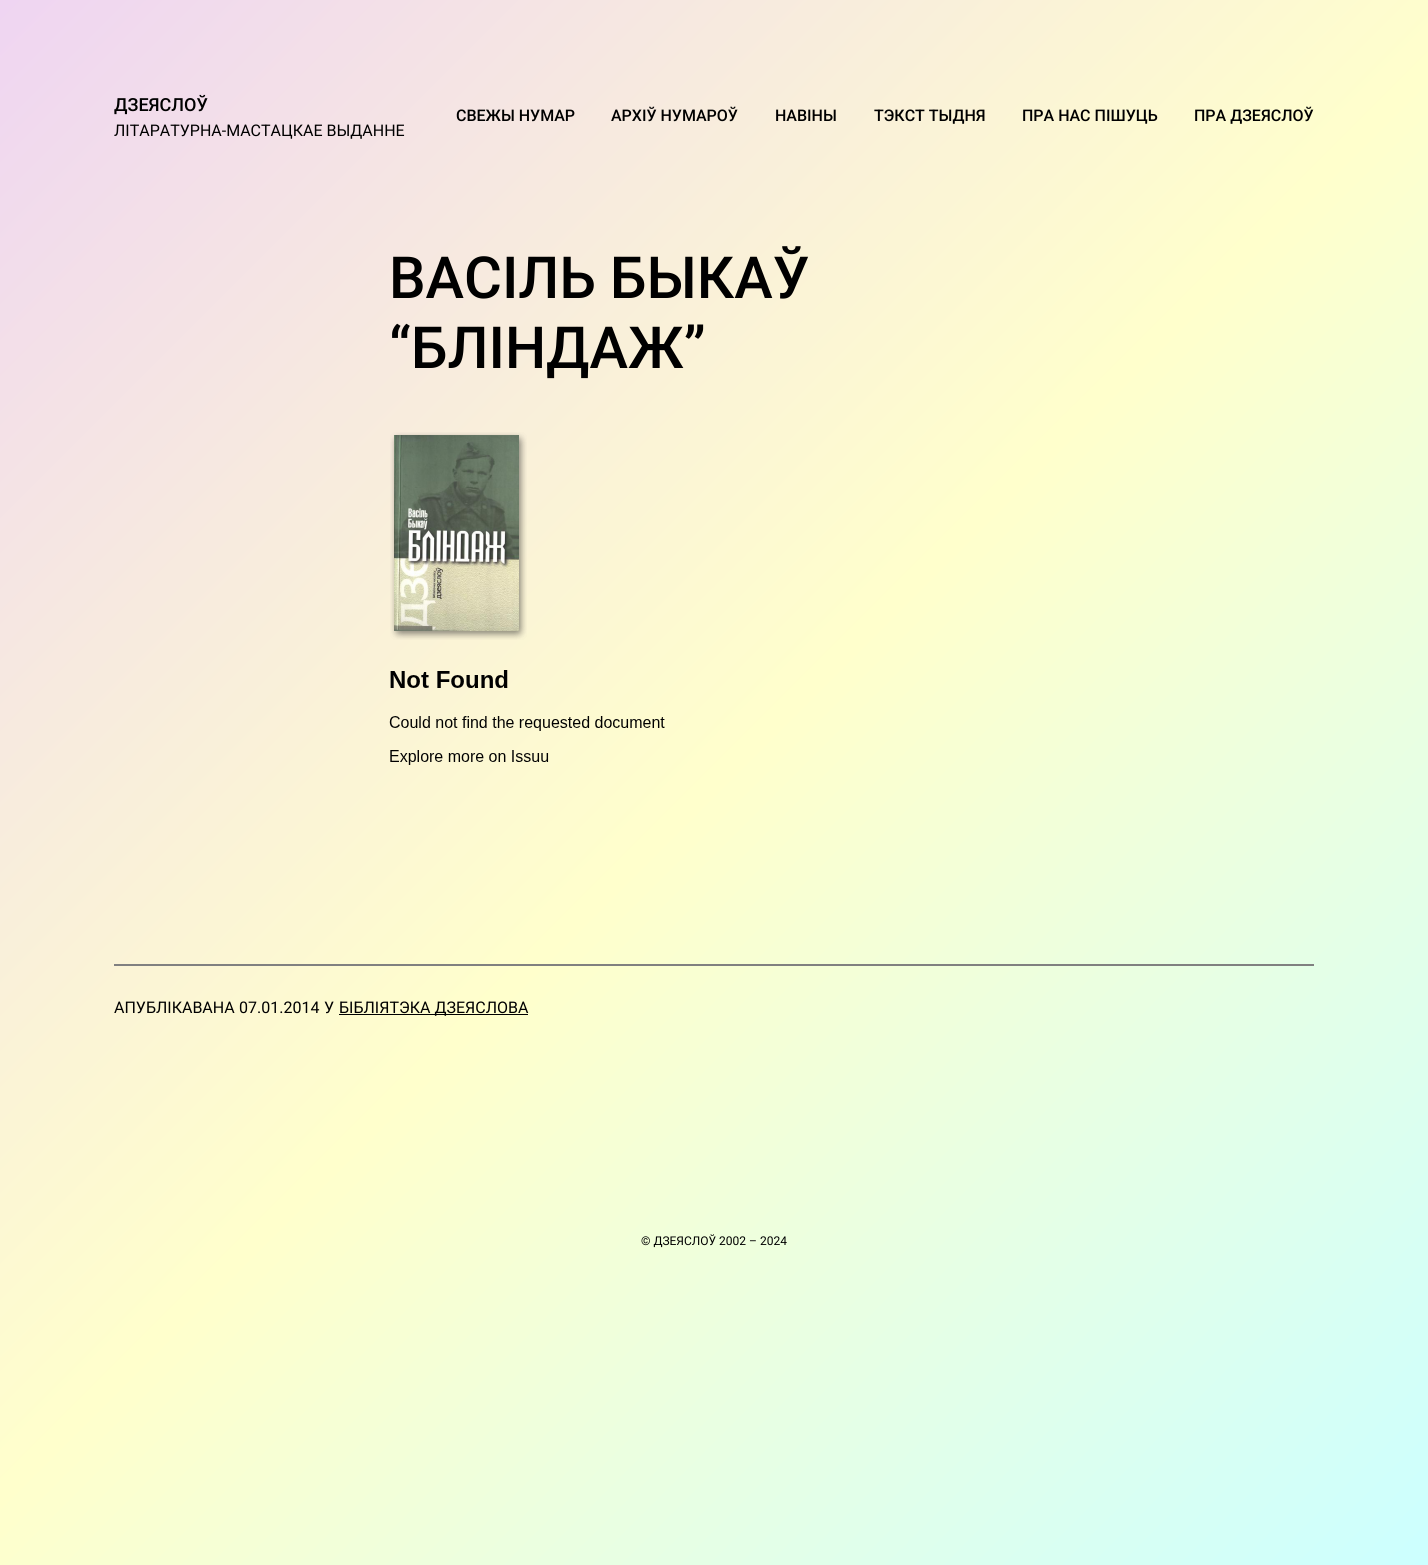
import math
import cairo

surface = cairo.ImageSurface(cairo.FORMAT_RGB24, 1428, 1565)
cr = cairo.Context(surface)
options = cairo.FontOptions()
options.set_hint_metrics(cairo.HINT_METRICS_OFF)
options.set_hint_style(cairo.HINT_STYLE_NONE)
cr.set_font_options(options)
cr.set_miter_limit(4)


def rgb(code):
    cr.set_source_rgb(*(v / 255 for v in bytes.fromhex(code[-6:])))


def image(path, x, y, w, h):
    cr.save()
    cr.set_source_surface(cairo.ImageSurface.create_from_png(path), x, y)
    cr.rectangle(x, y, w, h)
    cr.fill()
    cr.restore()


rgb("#ffffff")
cr.paint()
gradient = cairo.LinearGradient(-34, 34, 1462, 1531)
gradient.add_color_stop_rgba(0, 0.937, 0.835, 0.949, 1)
gradient.add_color_stop_rgba(0.5, 1, 1, 0.8, 1)
gradient.add_color_stop_rgba(1, 0.8, 1, 1, 1)
cr.set_source(gradient)
cr.rectangle(0, 0, 1428, 1565)
cr.fill()
image("img/1.png", 390, 432, 137, 208)
image("img/2.png", 389, 670, 276, 95)
rgb("#808080")
cr.rectangle(114, 964, 1200, 2)
cr.fill()
rgb("#000000")
cr.rectangle(339, 1014, 189, 1)
cr.fill()
cr.select_font_face("Roboto Medium")
cr.set_font_size(18)
cr.move_to(114, 111)
cr.show_text("ДЗЕЯСЛОЎ")
cr.select_font_face("Roboto")
cr.set_font_size(16)
cr.move_to(114, 136)
cr.show_text("ЛІТАРАТУРНА-МАСТАЦКАЕ ВЫДАННЕ")
cr.select_font_face("Roboto Medium")
for x, y, s in [
    (456, 121, "СВЕЖЫ НУМАР"),
    (611, 121, "АРХІЎ НУМАРОЎ"),
    (775, 121, "НАВІНЫ"),
    (874, 121, "ТЭКСТ ТЫДНЯ"),
    (1022, 121, "ПРА НАС ПІШУЦЬ"),
    (1194, 121, "ПРА ДЗЕЯСЛОЎ"),
]:
    cr.move_to(x, y)
    cr.show_text(s)
cr.set_font_size(58)
cr.move_to(389, 298)
cr.show_text("ВАСІЛЬ БЫКАЎ")
cr.move_to(389, 368)
cr.show_text("“БЛІНДАЖ”")
cr.select_font_face("Roboto")
cr.set_font_size(16)
for x, y, s in [
    (114, 1013, "АПУБЛІКАВАНА"),
    (239, 1013, "07.01.2014"),
    (324, 1013, "У"),
    (339, 1013, "БІБЛІЯТЭКА ДЗЕЯСЛОВА"),
]:
    cr.move_to(x, y)
    cr.show_text(s)
cr.set_font_size(12)
cr.move_to(641, 1245)
cr.show_text("© ДЗЕЯСЛОЎ 2002 – 2024")
surface.write_to_png("page.png")
